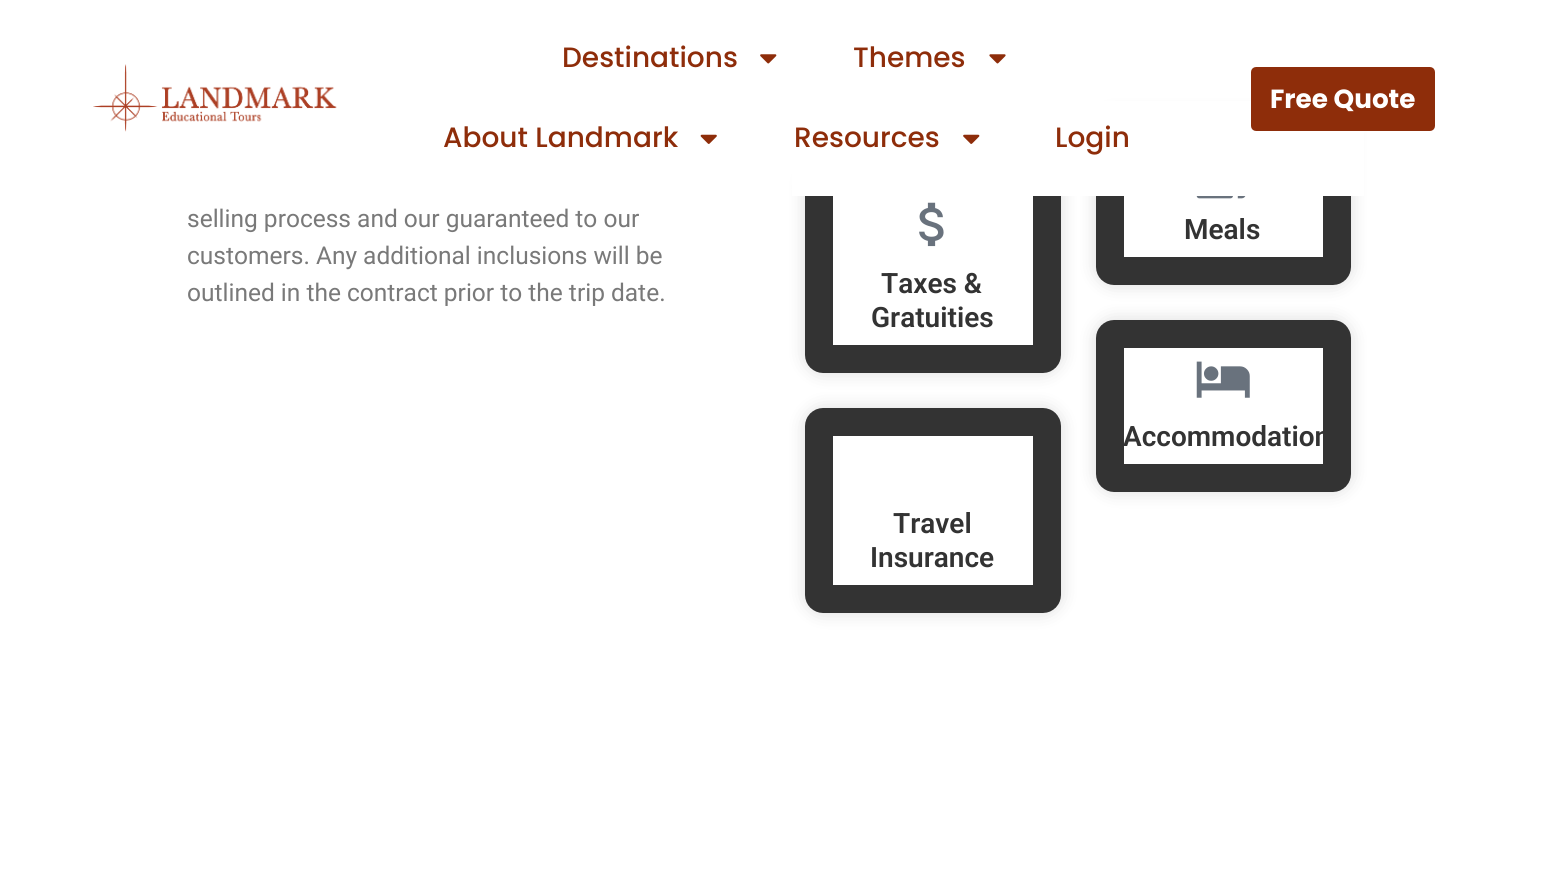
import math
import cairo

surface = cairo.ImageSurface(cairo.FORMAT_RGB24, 1556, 879)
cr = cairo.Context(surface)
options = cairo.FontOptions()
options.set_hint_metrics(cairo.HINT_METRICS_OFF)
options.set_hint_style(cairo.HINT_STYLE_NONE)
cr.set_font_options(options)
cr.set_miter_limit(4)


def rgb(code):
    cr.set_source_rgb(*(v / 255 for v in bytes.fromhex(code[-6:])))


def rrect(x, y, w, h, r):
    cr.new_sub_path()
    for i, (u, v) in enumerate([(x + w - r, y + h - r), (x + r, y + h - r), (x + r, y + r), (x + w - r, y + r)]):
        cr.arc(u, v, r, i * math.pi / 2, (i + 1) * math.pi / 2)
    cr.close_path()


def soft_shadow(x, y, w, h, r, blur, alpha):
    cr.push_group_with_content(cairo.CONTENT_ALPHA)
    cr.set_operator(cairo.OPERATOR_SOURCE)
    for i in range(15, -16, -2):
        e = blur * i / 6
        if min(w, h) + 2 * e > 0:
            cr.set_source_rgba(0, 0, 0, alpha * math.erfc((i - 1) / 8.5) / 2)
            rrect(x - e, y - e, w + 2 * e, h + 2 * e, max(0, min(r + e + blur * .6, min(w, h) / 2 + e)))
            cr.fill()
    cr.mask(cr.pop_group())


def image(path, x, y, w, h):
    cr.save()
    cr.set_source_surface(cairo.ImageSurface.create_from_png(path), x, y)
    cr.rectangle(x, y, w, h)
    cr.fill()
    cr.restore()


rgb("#ffffff")
cr.paint()
cr.save()
cr.set_fill_rule(cairo.FILL_RULE_EVEN_ODD)
cr.new_path()
cr.move_to(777, 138)
cr.line_to(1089, 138)
cr.line_to(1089, 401)
cr.line_to(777, 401)
cr.close_path()
cr.move_to(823, 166)
cr.line_to(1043, 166)
cr.curve_to(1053, 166, 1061, 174, 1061, 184)
cr.line_to(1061, 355)
cr.curve_to(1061, 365, 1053, 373, 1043, 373)
cr.line_to(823, 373)
cr.curve_to(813, 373, 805, 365, 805, 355)
cr.line_to(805, 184)
cr.curve_to(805, 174, 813, 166, 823, 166)
cr.close_path()
cr.clip()
rgb("#000000")
soft_shadow(805, 166, 256, 207, 18, 9, 0.14)
cr.restore()
rrect(819, 180, 228, 179, 4)
rgb("#333333")
cr.set_line_width(28)
cr.stroke()
cr.save()
cr.set_fill_rule(cairo.FILL_RULE_EVEN_ODD)
cr.new_path()
cr.move_to(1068, 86)
cr.line_to(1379, 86)
cr.line_to(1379, 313)
cr.line_to(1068, 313)
cr.close_path()
cr.move_to(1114, 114)
cr.line_to(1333, 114)
cr.curve_to(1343, 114, 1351, 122, 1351, 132)
cr.line_to(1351, 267)
cr.curve_to(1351, 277, 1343, 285, 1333, 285)
cr.line_to(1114, 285)
cr.curve_to(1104, 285, 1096, 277, 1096, 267)
cr.line_to(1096, 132)
cr.curve_to(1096, 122, 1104, 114, 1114, 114)
cr.close_path()
cr.clip()
rgb("#000000")
soft_shadow(1096, 114, 255, 171, 18, 9, 0.14)
cr.restore()
rrect(1110, 128, 227, 143, 4)
cr.stroke()
rgb("#ffffff")
cr.rectangle(792, 101, 572, 95)
cr.fill()
image("img/1.png", 93, 64, 244, 68)
image("img/2.png", 760, 54, 17, 10)
image("img/3.png", 989, 54, 17, 10)
image("img/4.png", 700, 134, 17, 10)
image("img/5.png", 963, 134, 17, 10)
rgb("#8e2d0a")
rrect(1253.5, 69.5, 179, 59, 2.5)
cr.fill_preserve()
cr.set_line_width(5)
cr.stroke()
image("img/6.png", 919, 202, 25, 45)
cr.save()
cr.set_fill_rule(cairo.FILL_RULE_EVEN_ODD)
cr.new_path()
cr.move_to(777, 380)
cr.line_to(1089, 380)
cr.line_to(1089, 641)
cr.line_to(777, 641)
cr.close_path()
cr.move_to(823, 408)
cr.line_to(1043, 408)
cr.curve_to(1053, 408, 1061, 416, 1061, 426)
cr.line_to(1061, 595)
cr.curve_to(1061, 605, 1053, 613, 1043, 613)
cr.line_to(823, 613)
cr.curve_to(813, 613, 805, 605, 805, 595)
cr.line_to(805, 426)
cr.curve_to(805, 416, 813, 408, 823, 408)
cr.close_path()
cr.clip()
rgb("#000000")
soft_shadow(805, 408, 256, 205, 18, 9, 0.14)
cr.restore()
rrect(819, 422, 228, 177, 4)
rgb("#333333")
cr.set_line_width(28)
cr.stroke()
image("img/7.png", 1196, 196, 50, 3)
cr.save()
cr.set_fill_rule(cairo.FILL_RULE_EVEN_ODD)
cr.new_path()
cr.move_to(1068, 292)
cr.line_to(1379, 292)
cr.line_to(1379, 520)
cr.line_to(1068, 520)
cr.close_path()
cr.move_to(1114, 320)
cr.line_to(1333, 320)
cr.curve_to(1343, 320, 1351, 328, 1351, 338)
cr.line_to(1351, 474)
cr.curve_to(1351, 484, 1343, 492, 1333, 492)
cr.line_to(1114, 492)
cr.curve_to(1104, 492, 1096, 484, 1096, 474)
cr.line_to(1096, 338)
cr.curve_to(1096, 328, 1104, 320, 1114, 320)
cr.close_path()
cr.clip()
rgb("#000000")
soft_shadow(1096, 320, 255, 172, 18, 9, 0.14)
cr.restore()
rrect(1110, 334, 227, 144, 4)
cr.stroke()
image("img/8.png", 1196, 361, 54, 37)
cr.select_font_face("Poppins Medium")
cr.set_font_size(28)
rgb("#8e2d0a")
for x, y, s in [
    (562, 67, "Destinations"),
    (853, 67, "Themes"),
    (443, 147, "About Landmark"),
    (794, 147, "Resources"),
    (1055, 147, "Login"),
]:
    cr.move_to(x, y)
    cr.show_text(s)
cr.select_font_face("Poppins", cairo.FONT_SLANT_NORMAL, cairo.FONT_WEIGHT_BOLD)
cr.set_font_size(26.25)
rgb("#ffffff")
cr.move_to(1270, 108)
cr.show_text("Free Quote")
cr.select_font_face("Roboto")
cr.set_font_size(24.5)
rgb("#797979")
for x, y, s in [
    (187, 227, "selling process and our guaranteed to our"),
    (187, 264, "customers. Any additional inclusions will be"),
    (187, 301, "outlined in the contract prior to the trip date."),
]:
    cr.move_to(x, y)
    cr.show_text(s)
cr.select_font_face("Roboto SemiBold")
cr.set_font_size(28)
rgb("#333333")
for x, y, s in [
    (881, 293, "Taxes &"),
    (871, 327, "Gratuities"),
    (893, 533, "Travel"),
    (870, 567, "Insurance"),
    (1184, 239, "Meals"),
    (1123, 446, "Accommodation"),
]:
    cr.move_to(x, y)
    cr.show_text(s)
surface.write_to_png("page.png")
